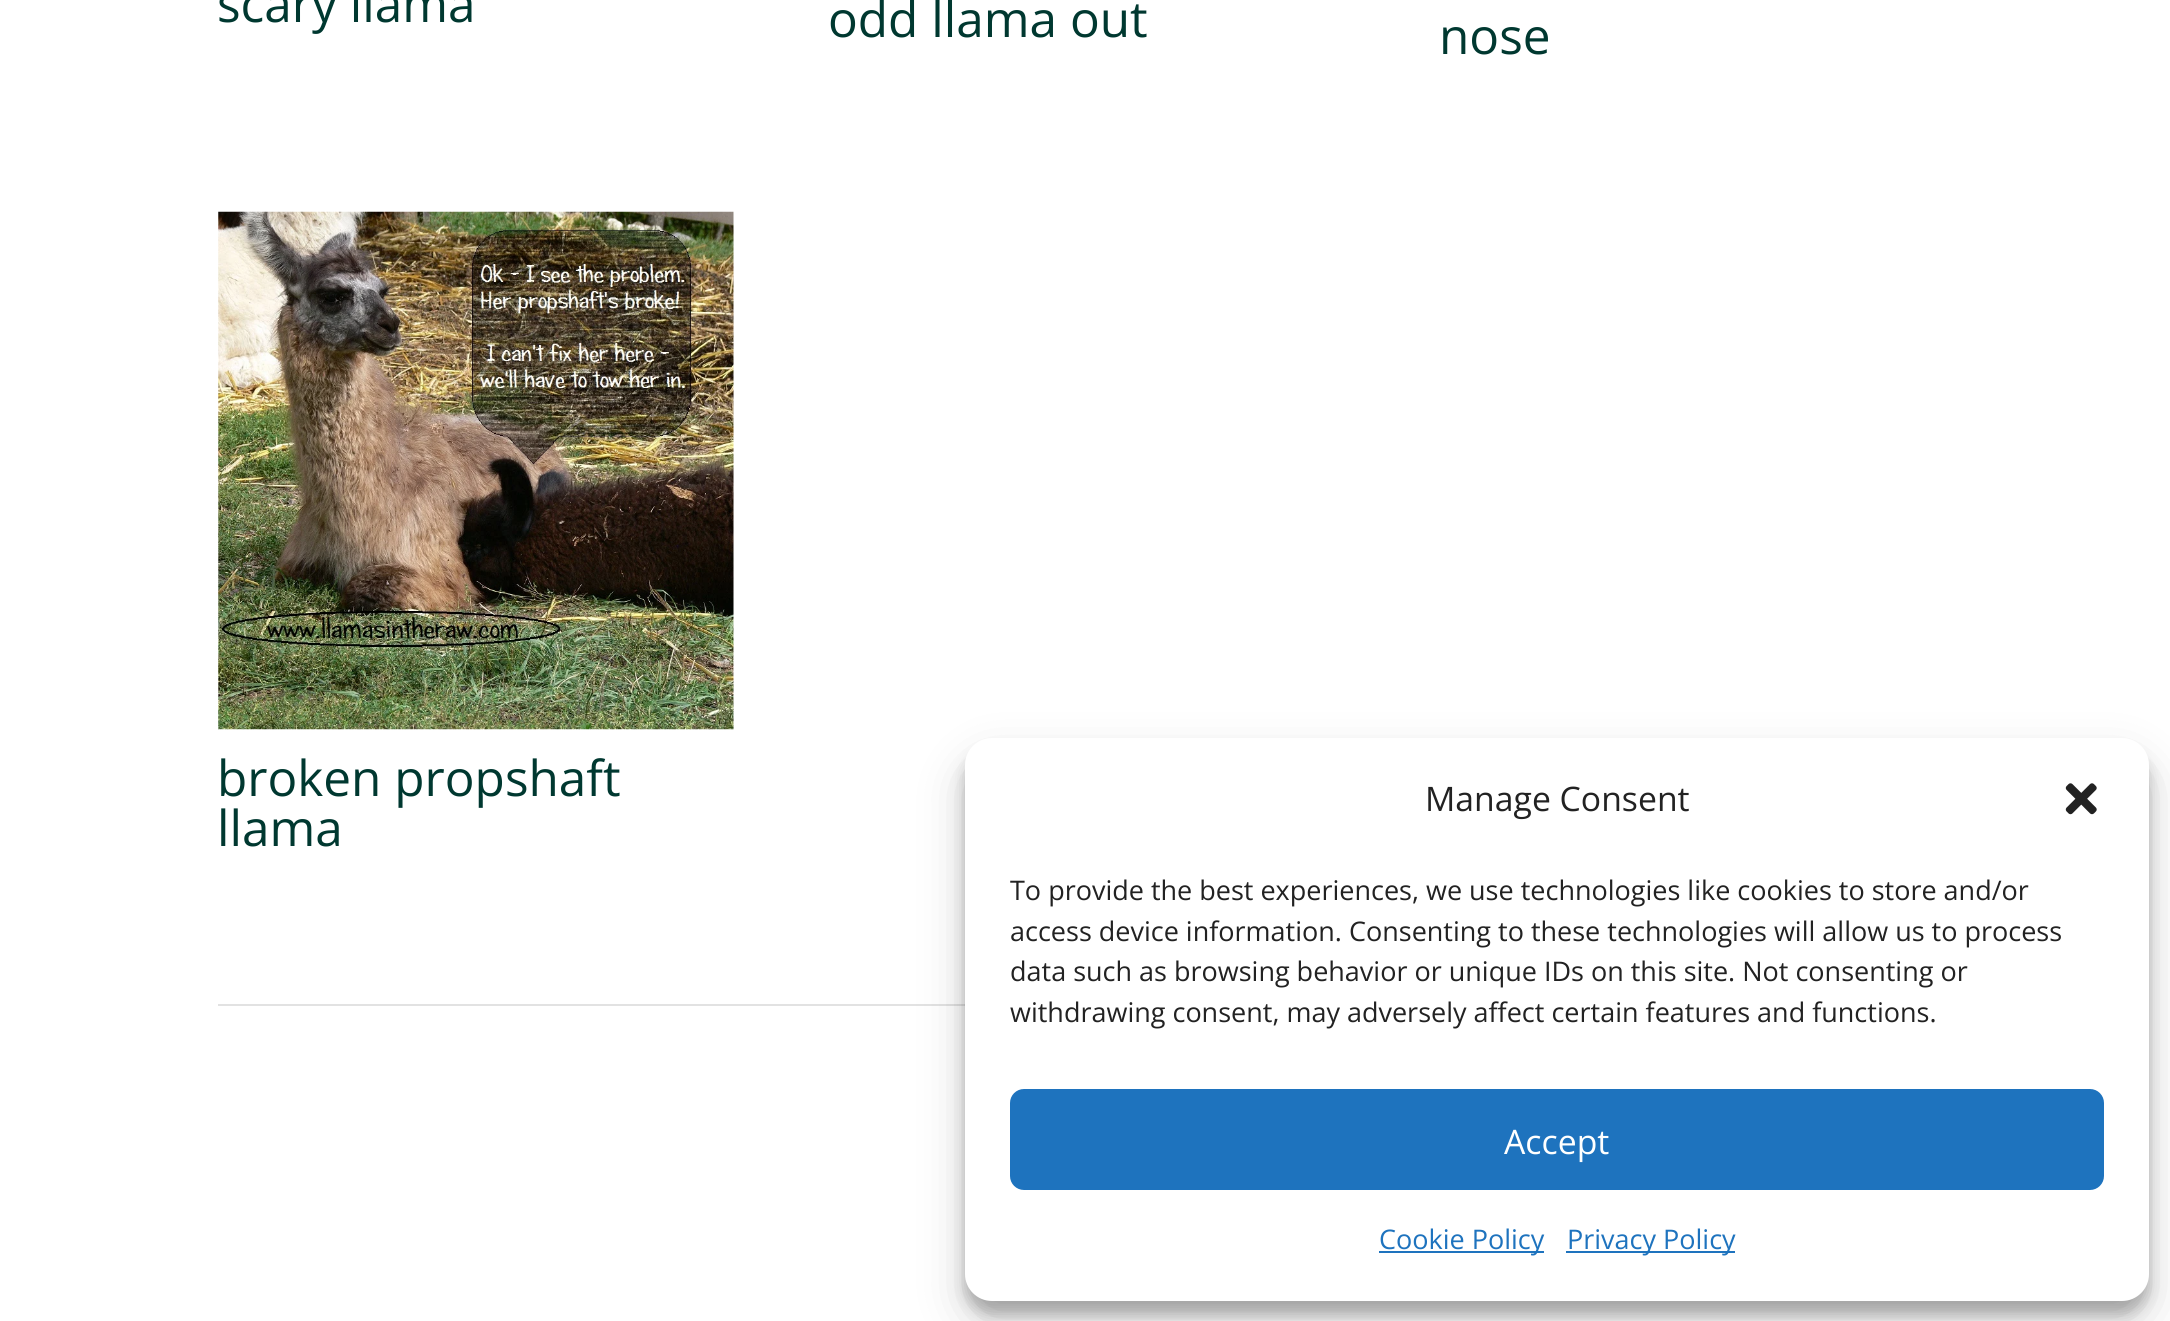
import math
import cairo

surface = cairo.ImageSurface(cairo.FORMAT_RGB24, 2170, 1321)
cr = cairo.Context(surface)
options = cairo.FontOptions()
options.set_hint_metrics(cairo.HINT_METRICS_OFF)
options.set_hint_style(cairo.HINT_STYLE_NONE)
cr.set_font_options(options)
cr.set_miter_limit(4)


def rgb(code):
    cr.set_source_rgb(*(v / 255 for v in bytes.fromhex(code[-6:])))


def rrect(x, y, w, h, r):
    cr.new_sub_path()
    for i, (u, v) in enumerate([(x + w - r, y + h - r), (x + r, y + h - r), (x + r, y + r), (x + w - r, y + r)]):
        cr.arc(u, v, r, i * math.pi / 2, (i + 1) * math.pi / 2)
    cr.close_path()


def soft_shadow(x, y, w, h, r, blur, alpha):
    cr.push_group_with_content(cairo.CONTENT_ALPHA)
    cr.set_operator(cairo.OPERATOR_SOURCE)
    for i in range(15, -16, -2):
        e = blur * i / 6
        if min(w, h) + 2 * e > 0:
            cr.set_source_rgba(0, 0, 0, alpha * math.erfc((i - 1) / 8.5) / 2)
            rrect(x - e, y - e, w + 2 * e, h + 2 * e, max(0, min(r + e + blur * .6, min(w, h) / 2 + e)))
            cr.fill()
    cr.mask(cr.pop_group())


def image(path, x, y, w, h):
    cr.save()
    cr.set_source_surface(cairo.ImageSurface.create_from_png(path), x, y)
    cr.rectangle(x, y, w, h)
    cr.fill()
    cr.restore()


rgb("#ffffff")
cr.paint()
image("img/1.png", 218, 211, 516, 519)
rgb("#e2e2e2")
cr.rectangle(218, 1004, 747, 2)
cr.fill()
rgb("#000000")
soft_shadow(965, 752, 1184, 562, 27, 7, 0.23)
soft_shadow(965, 761, 1184, 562, 27, 22.5, 0.19)
rgb("#ffffff")
rrect(965, 738, 1184, 563, 27)
cr.fill()
image("img/2.png", 2065, 783, 32, 32)
rgb("#1e73be")
rrect(1011, 1090, 1092, 99, 13)
cr.fill_preserve()
cr.stroke()
cr.rectangle(1379, 1251, 165, 2)
cr.fill()
cr.rectangle(1566, 1251, 169, 2)
cr.fill()
cr.select_font_face("Open Sans")
cr.set_font_size(49.5)
rgb("#003830")
for x, y, s in [
    (217, 22, "scary llama"),
    (828, 37, "odd llama out"),
    (1439, 54, "nose"),
    (217, 796, "broken propshaft"),
    (217, 846, "llama"),
]:
    cr.move_to(x, y)
    cr.show_text(s)
cr.set_font_size(33.75)
rgb("#222222")
cr.move_to(1425, 811)
cr.show_text("Manage Consent")
cr.set_font_size(27)
for x, y, s in [
    (1010, 900, "To provide the best experiences, we use technologies like cookies to store and/or"),
    (1010, 941, "access device information. Consenting to these technologies will allow us to process"),
    (1010, 981, "data such as browsing behavior or unique IDs on this site. Not consenting or"),
    (1010, 1022, "withdrawing consent, may adversely affect certain features and functions."),
]:
    cr.move_to(x, y)
    cr.show_text(s)
cr.set_font_size(33.75)
rgb("#ffffff")
cr.move_to(1504, 1154)
cr.show_text("Accept")
cr.set_font_size(27)
rgb("#1e73be")
cr.move_to(1379, 1249)
cr.show_text("Cookie Policy")
cr.move_to(1567, 1249)
cr.show_text("Privacy Policy")
surface.write_to_png("page.png")
